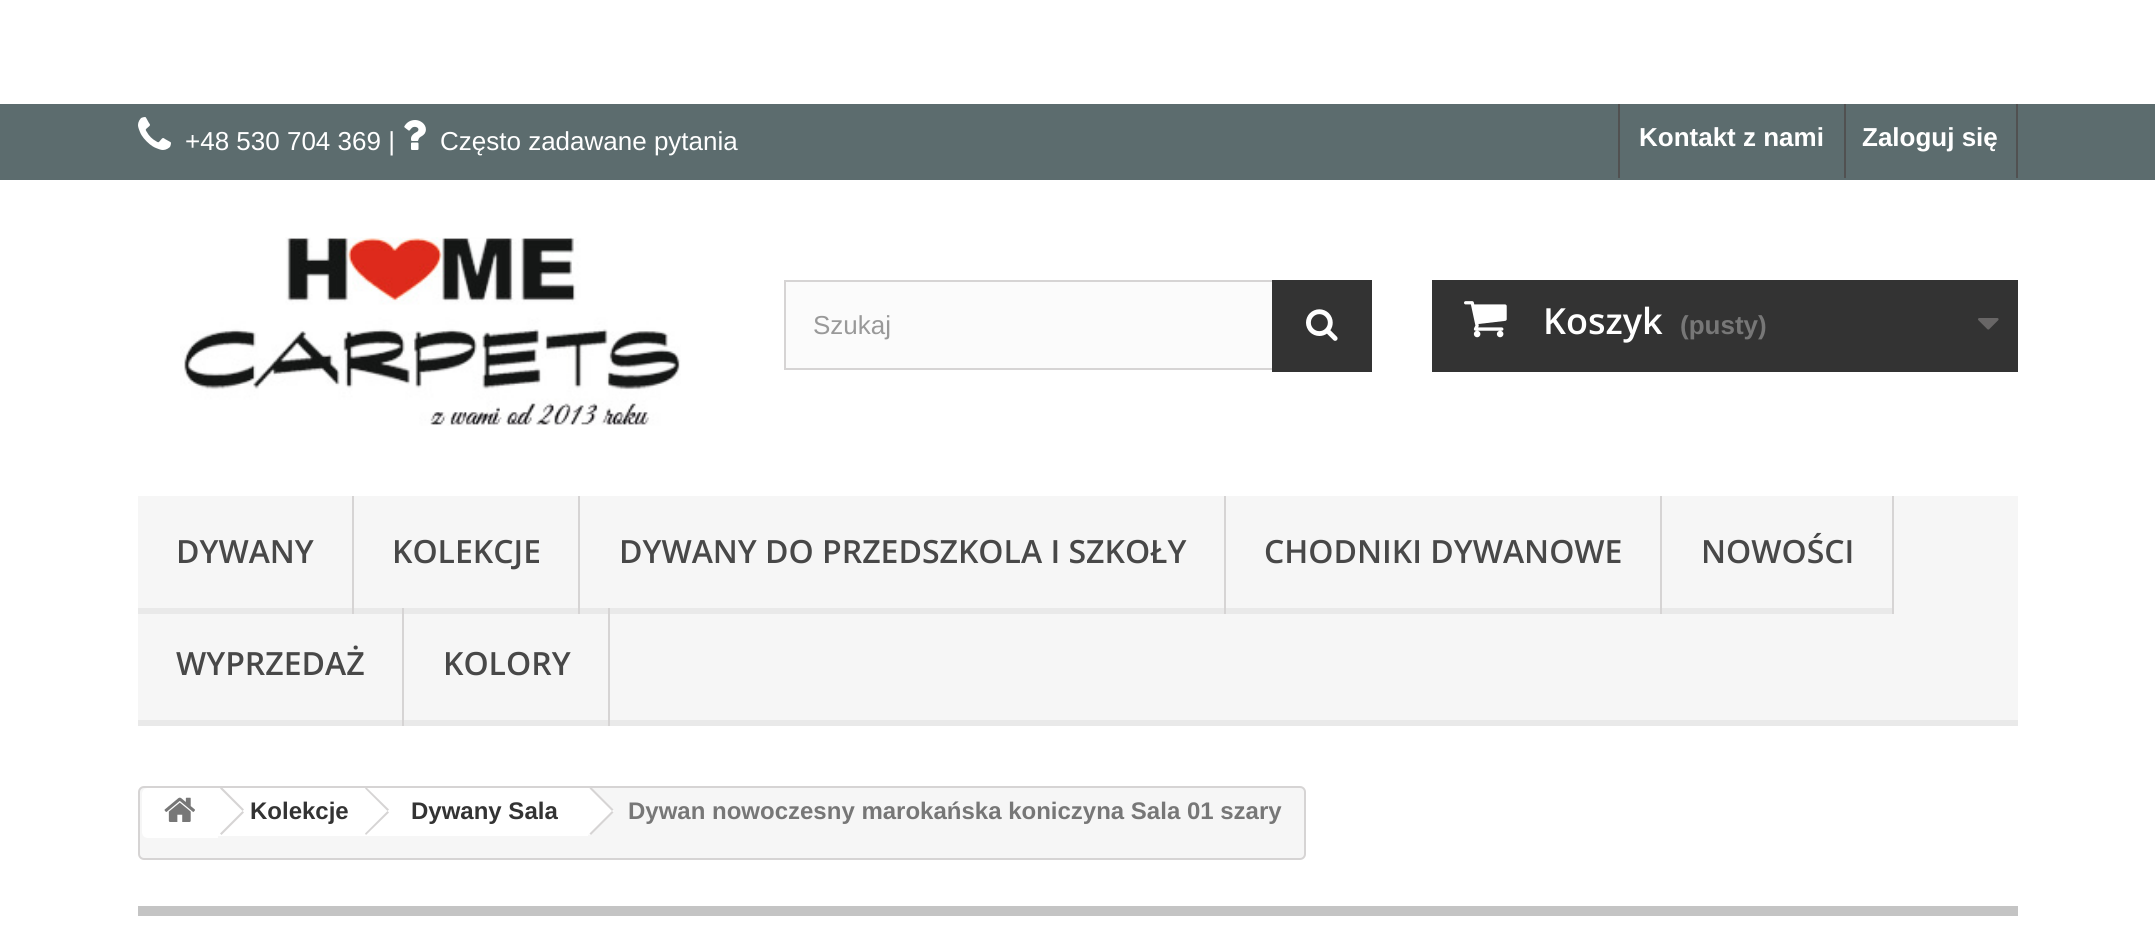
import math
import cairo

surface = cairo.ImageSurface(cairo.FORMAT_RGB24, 2155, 930)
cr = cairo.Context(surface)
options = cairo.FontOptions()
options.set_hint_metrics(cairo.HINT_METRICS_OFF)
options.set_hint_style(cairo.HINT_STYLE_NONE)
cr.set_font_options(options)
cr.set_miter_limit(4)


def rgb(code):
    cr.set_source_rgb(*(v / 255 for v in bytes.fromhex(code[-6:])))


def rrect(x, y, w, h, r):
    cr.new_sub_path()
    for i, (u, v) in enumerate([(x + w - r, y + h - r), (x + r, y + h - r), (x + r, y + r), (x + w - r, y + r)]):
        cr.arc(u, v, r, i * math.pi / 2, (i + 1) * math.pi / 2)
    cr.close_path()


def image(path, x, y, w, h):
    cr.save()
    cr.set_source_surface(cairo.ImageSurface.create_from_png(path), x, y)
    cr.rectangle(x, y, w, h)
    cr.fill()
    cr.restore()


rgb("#ffffff")
cr.paint()
rgb("#5c6c6e")
cr.rectangle(0, 104, 2155, 76)
cr.fill()
image("img/1.png", 138, 117, 33, 33)
image("img/2.png", 404, 120, 22, 30)
for x, y, w, h, color in [
    (1618, 104, 2, 74, "#515151"),
    (2016, 104, 2, 74, "#515151"),
    (1844, 104, 2, 74, "#515151"),
]:
    rgb(color)
    cr.rectangle(x, y, w, h)
    cr.fill()
image("img/3.png", 180, 237, 501, 189)
rgb("#fbfbfb")
cr.rectangle(786, 282, 486, 86)
cr.fill()
cr.rectangle(785, 281, 586, 88)
rgb("#d6d4d4")
cr.stroke()
rgb("#333333")
cr.rectangle(1272, 280, 100, 92)
cr.fill()
image("img/4.png", 1306, 309, 32, 32)
cr.rectangle(1432, 280, 586, 92)
cr.fill()
image("img/5.png", 1464, 301, 43, 37)
image("img/6.png", 1978, 318, 21, 12)
for x, y, w, h, color in [
    (138, 496, 1880, 224, "#f6f6f6"),
    (138, 720, 1880, 6, "#e9e9e9"),
    (352, 496, 2, 118, "#d6d4d4"),
    (138, 608, 214, 6, "#e9e9e9"),
    (578, 496, 2, 118, "#d6d4d4"),
    (354, 608, 224, 6, "#e9e9e9"),
    (1224, 496, 2, 118, "#d6d4d4"),
    (580, 608, 644, 6, "#e9e9e9"),
    (1660, 496, 2, 118, "#d6d4d4"),
    (1226, 608, 434, 6, "#e9e9e9"),
    (1892, 496, 2, 118, "#d6d4d4"),
    (1662, 608, 230, 6, "#e9e9e9"),
    (402, 608, 2, 118, "#d6d4d4"),
    (608, 608, 2, 118, "#d6d4d4"),
]:
    rgb(color)
    cr.rectangle(x, y, w, h)
    cr.fill()
rgb("#f6f6f6")
rrect(139, 787, 1166, 72, 5)
cr.fill_preserve()
rgb("#d6d4d4")
cr.stroke()
rgb("#ffffff")
cr.new_path()
cr.move_to(148, 788)
cr.line_to(218, 788)
cr.line_to(218, 838)
cr.line_to(148, 838)
cr.curve_to(144.5, 838, 142, 835.5, 142, 832)
cr.line_to(142, 794)
cr.curve_to(142, 790.5, 144.5, 788, 148, 788)
cr.close_path()
cr.fill()
image("img/7.png", 164, 797, 31, 25)
cr.rectangle(218, 788, 148, 48)
cr.fill()
rgb("#d6d4d4")
cr.new_path()
cr.move_to(222.5, 788)
cr.line_to(244, 809.5)
cr.line_to(242.5, 811)
cr.line_to(220, 788.5)
cr.line_to(220.5, 788)
cr.close_path()
cr.move_to(242.5, 811)
cr.line_to(244, 812.5)
cr.line_to(221.5, 835)
cr.line_to(220, 833.5)
cr.close_path()
cr.fill()
rgb("#ffffff")
cr.new_path()
cr.move_to(384, 788)
cr.line_to(378, 788)
cr.line_to(358, 808)
cr.curve_to(357, 810, 357, 812, 358, 814)
cr.line_to(378, 834)
cr.curve_to(379, 835, 382, 835, 384, 834)
cr.line_to(403, 814)
cr.curve_to(405, 812, 405, 810, 403, 808)
cr.close_path()
cr.fill()
cr.rectangle(366, 788, 222, 48)
cr.fill()
rgb("#d6d4d4")
cr.new_path()
cr.move_to(367, 788)
cr.line_to(389, 809.5)
cr.line_to(387.5, 811)
cr.line_to(365, 788.5)
cr.line_to(365.5, 788)
cr.close_path()
cr.move_to(387.5, 811)
cr.line_to(389, 812.5)
cr.line_to(366, 835)
cr.line_to(365, 833.5)
cr.close_path()
cr.fill()
rgb("#ffffff")
cr.new_path()
cr.move_to(592, 788)
cr.line_to(587, 788)
cr.line_to(567, 808)
cr.curve_to(565, 810, 565, 812, 567, 814)
cr.line_to(587, 834)
cr.curve_to(588, 835, 591, 835, 592, 834)
cr.line_to(612, 814)
cr.curve_to(614, 812, 614, 810, 612, 808)
cr.close_path()
cr.fill()
rgb("#d6d4d4")
cr.new_path()
cr.move_to(592, 788)
cr.line_to(613.5, 809.5)
cr.line_to(612, 811)
cr.line_to(589.5, 788.5)
cr.line_to(590, 788)
cr.close_path()
cr.move_to(612, 811)
cr.line_to(613.5, 812.5)
cr.line_to(591, 835)
cr.line_to(589.5, 833.5)
cr.close_path()
cr.fill()
rgb("#c4c4c4")
cr.rectangle(138, 906, 1880, 10)
cr.fill()
cr.select_font_face("Liberation Sans")
cr.set_font_size(26)
rgb("#ffffff")
cr.move_to(185, 150)
cr.show_text("+48 530 704 369 |")
cr.move_to(440, 150)
cr.show_text("Często zadawane pytania")
cr.select_font_face("Liberation Sans", cairo.FONT_SLANT_NORMAL, cairo.FONT_WEIGHT_BOLD)
cr.move_to(1639, 146)
cr.show_text("Kontakt z nami")
cr.move_to(1862, 146)
cr.show_text("Zaloguj się")
cr.select_font_face("Liberation Sans")
rgb("#999999")
cr.move_to(813, 334)
cr.show_text("Szukaj")
cr.select_font_face("Open Sans SemiBold")
cr.set_font_size(36)
rgb("#ffffff")
cr.move_to(1543, 334)
cr.show_text("Koszyk")
cr.select_font_face("Liberation Sans", cairo.FONT_SLANT_NORMAL, cairo.FONT_WEIGHT_BOLD)
cr.set_font_size(26)
rgb("#777777")
cr.move_to(1680, 334)
cr.show_text("(pusty)")
cr.select_font_face("Open Sans SemiBold")
cr.set_font_size(32)
rgb("#484848")
for x, y, s in [
    (176, 563, "DYWANY"),
    (392, 563, "KOLEKCJE"),
    (619, 563, "DYWANY DO PRZEDSZKOLA I SZKOŁY"),
    (1264, 563, "CHODNIKI DYWANOWE"),
    (1701, 563, "NOWOŚCI"),
    (176, 675, "WYPRZEDAŻ"),
    (443, 675, "KOLORY"),
]:
    cr.move_to(x, y)
    cr.show_text(s)
cr.select_font_face("Liberation Sans", cairo.FONT_SLANT_NORMAL, cairo.FONT_WEIGHT_BOLD)
cr.set_font_size(24)
rgb("#333333")
cr.move_to(250, 819)
cr.show_text("Kolekcje")
cr.move_to(411, 819)
cr.show_text("Dywany Sala")
rgb("#777777")
cr.move_to(628, 819)
cr.show_text("Dywan nowoczesny marokańska koniczyna Sala 01 szary")
surface.write_to_png("page.png")
